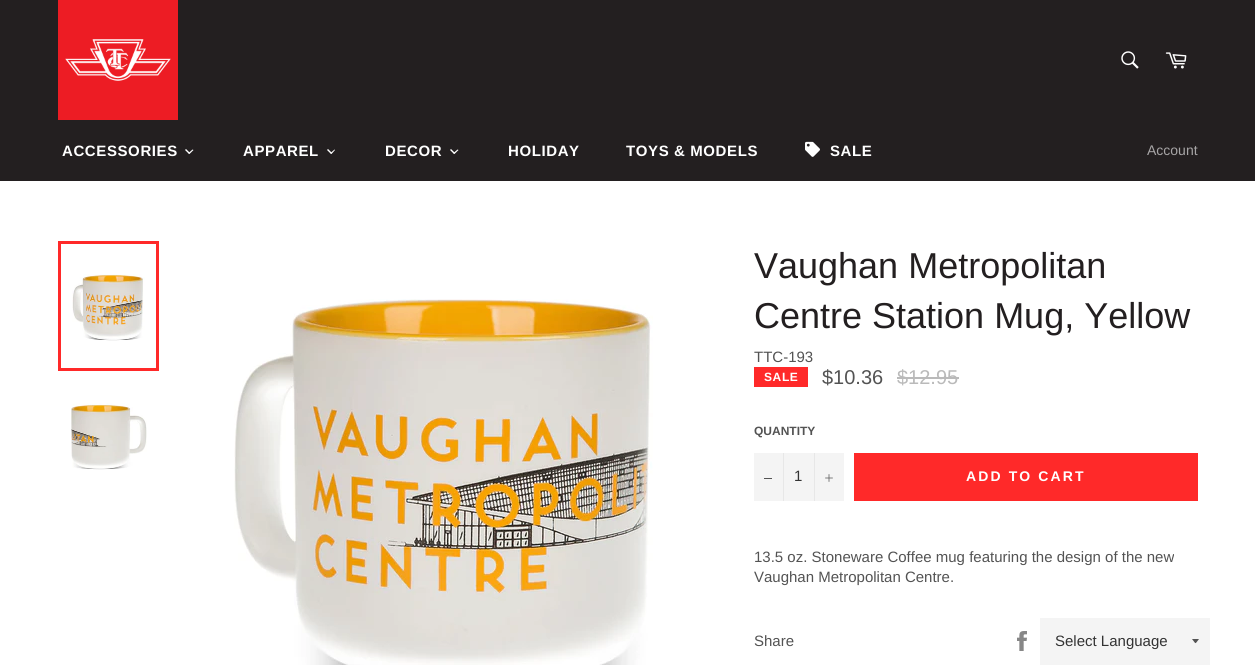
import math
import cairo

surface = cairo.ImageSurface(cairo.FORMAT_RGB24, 1255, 665)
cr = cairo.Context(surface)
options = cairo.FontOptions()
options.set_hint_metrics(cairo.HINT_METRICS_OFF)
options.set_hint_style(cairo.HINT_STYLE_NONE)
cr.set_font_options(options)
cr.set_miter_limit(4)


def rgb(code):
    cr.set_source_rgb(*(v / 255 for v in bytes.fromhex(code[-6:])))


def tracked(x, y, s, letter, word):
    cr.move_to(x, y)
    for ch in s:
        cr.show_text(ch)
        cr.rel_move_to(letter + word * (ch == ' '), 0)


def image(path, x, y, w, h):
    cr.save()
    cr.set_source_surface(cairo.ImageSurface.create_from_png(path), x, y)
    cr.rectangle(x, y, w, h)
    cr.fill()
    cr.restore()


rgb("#ffffff")
cr.paint()
rgb("#231f20")
cr.rectangle(0, 0, 1255, 181)
cr.fill()
image("img/1.png", 58, 0, 120, 120)
image("img/2.png", 1121, 51, 18, 18)
image("img/3.png", 1165, 52, 22, 17)
rgb("#ffffff")
cr.new_path()
cr.move_to(192.5, 149.5)
cr.line_to(193.5, 150)
cr.line_to(189.5, 154)
cr.line_to(188.5, 153)
cr.close_path()
cr.fill()
cr.new_path()
cr.move_to(186, 149)
cr.line_to(190, 153)
cr.line_to(189, 154)
cr.line_to(185, 150)
cr.close_path()
cr.fill()
cr.new_path()
cr.move_to(334.5, 149.5)
cr.line_to(335, 150)
cr.line_to(331.5, 154)
cr.line_to(330.5, 153)
cr.close_path()
cr.fill()
cr.new_path()
cr.move_to(328, 149)
cr.line_to(332, 153)
cr.line_to(331, 154)
cr.line_to(327, 150)
cr.close_path()
cr.fill()
cr.new_path()
cr.move_to(457.5, 149.5)
cr.line_to(458.5, 150)
cr.line_to(454.5, 154)
cr.line_to(453.5, 153)
cr.close_path()
cr.fill()
cr.new_path()
cr.move_to(451, 149)
cr.line_to(455, 153)
cr.line_to(454, 154)
cr.line_to(450, 150)
cr.close_path()
cr.fill()
image("img/4.png", 805, 141, 15, 16)
image("img/5.png", 72, 274, 73, 67)
cr.rectangle(59.5, 242.5, 98, 127)
rgb("#ff2929")
cr.set_line_width(3)
cr.stroke()
image("img/6.png", 71, 403, 76, 67)
image("img/7.png", 234, 299, 419, 366)
for x, y, w, h, color in [
    (754, 367, 54, 20, "#ff2929"),
    (897, 377, 62, 2, "#bababa"),
    (754, 453, 90, 48, "#f4f4f4"),
    (783, 453, 1, 48, "#e7e7e7"),
    (764, 478, 8, 1, "#535353"),
    (814, 453, 1, 48, "#e7e7e7"),
]:
    rgb(color)
    cr.rectangle(x, y, w, h)
    cr.fill()
image("img/8.png", 825, 474, 8, 8)
rgb("#ff2929")
cr.rectangle(854, 453, 344, 48)
cr.fill()
image("img/9.png", 1017, 631, 10, 20)
rgb("#f4f4f4")
cr.rectangle(1040, 618, 170, 47)
cr.fill()
rgb("#535353")
cr.new_path()
cr.move_to(1192, 639)
cr.curve_to(1196.5, 644.5, 1194.5, 644.5, 1199, 639)
cr.close_path()
cr.fill()
cr.select_font_face("Liberation Sans", cairo.FONT_SLANT_NORMAL, cairo.FONT_WEIGHT_BOLD)
cr.set_font_size(15)
rgb("#ffffff")
for x, y, s in [
    (62, 156, "ACCESSORIES"),
    (243, 156, "APPAREL"),
    (385, 156, "DECOR"),
    (508, 156, "HOLIDAY"),
    (626, 156, "TOYS & MODELS"),
    (830, 156, "SALE"),
]:
    tracked(x, y, s, 0.6, 0)
cr.select_font_face("Liberation Sans")
cr.set_font_size(14)
rgb("#a7a5a6")
cr.move_to(1147, 155)
cr.show_text("Account")
cr.set_font_size(36)
rgb("#231f20")
cr.move_to(754, 278)
cr.show_text("Vaughan Metropolitan")
cr.move_to(754, 328)
cr.show_text("Centre Station Mug, Yellow")
cr.set_font_size(15)
rgb("#535353")
cr.move_to(754, 362)
cr.show_text("TTC-193")
cr.select_font_face("Liberation Sans", cairo.FONT_SLANT_NORMAL, cairo.FONT_WEIGHT_BOLD)
cr.set_font_size(12)
rgb("#ffffff")
tracked(764, 381, "SALE", 0.6, 0)
cr.select_font_face("Liberation Sans")
cr.set_font_size(20)
rgb("#535353")
cr.move_to(822, 384)
cr.show_text("$10.36")
rgb("#bababa")
cr.move_to(897, 384)
cr.show_text("$12.95")
cr.select_font_face("Liberation Sans", cairo.FONT_SLANT_NORMAL, cairo.FONT_WEIGHT_BOLD)
cr.set_font_size(12)
rgb("#535353")
cr.move_to(754, 435)
cr.show_text("QUANTITY")
cr.select_font_face("Liberation Sans")
cr.set_font_size(15)
rgb("#333333")
cr.move_to(794, 481)
cr.show_text("1")
cr.select_font_face("Liberation Sans", cairo.FONT_SLANT_NORMAL, cairo.FONT_WEIGHT_BOLD)
cr.set_font_size(14)
rgb("#ffffff")
tracked(966, 481, "ADD TO CART", 2.1, 0)
cr.select_font_face("Liberation Sans")
cr.set_font_size(15)
rgb("#535353")
for x, y, s in [
    (754, 562, "13.5 oz. Stoneware Coffee mug featuring the design of the new"),
    (754, 582, "Vaughan Metropolitan Centre."),
    (754, 646, "Share"),
]:
    cr.move_to(x, y)
    cr.show_text(s)
rgb("#333333")
cr.move_to(1055, 646)
cr.show_text("Select Language")
surface.write_to_png("page.png")
